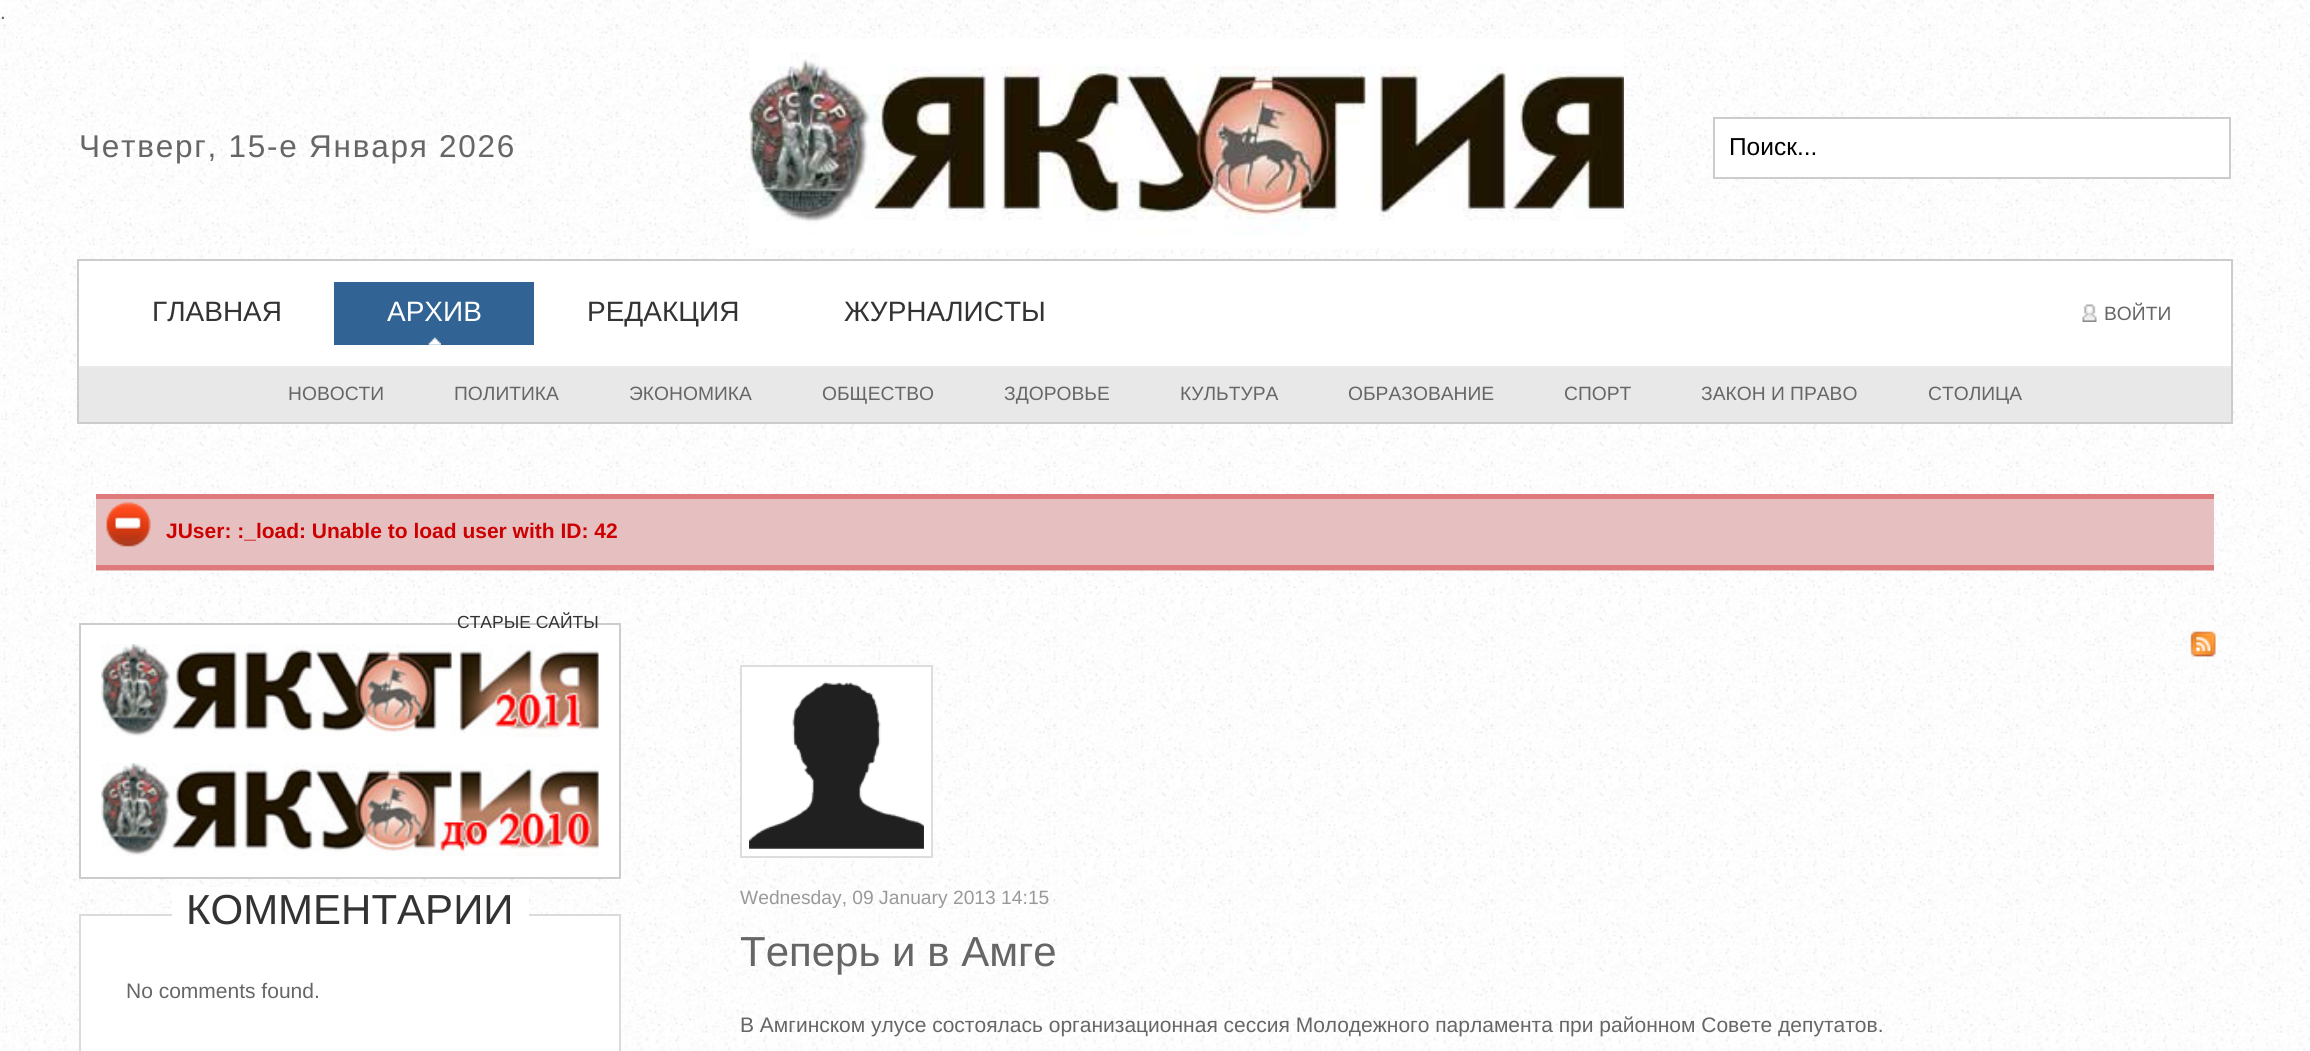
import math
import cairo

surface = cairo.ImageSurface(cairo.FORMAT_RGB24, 2310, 1051)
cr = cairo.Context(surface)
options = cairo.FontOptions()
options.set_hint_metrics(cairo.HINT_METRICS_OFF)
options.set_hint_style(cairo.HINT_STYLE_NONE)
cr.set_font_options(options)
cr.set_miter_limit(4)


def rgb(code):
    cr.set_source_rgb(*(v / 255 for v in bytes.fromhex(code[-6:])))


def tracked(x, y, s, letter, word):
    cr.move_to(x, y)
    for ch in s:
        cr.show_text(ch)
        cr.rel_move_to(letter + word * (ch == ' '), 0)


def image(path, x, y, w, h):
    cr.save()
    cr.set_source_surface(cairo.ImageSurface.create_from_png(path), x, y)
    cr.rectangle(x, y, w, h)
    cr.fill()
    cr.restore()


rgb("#ffffff")
cr.paint()
image("img/1.png", 0, 0, 2310, 1051)
image("img/2.png", 749, 38, 875, 211)
rgb("#ffffff")
cr.rectangle(1714, 118, 516, 60)
cr.fill_preserve()
rgb("#cccccc")
cr.stroke()
for x, y, w, h, color in [
    (79, 261, 2152, 105, "#ffffff"),
    (77, 259, 2156, 2, "#cccccc"),
    (2231, 259, 2, 107, "#cccccc"),
    (77, 259, 2, 107, "#cccccc"),
    (334, 282, 200, 63, "#316494"),
]:
    rgb(color)
    cr.rectangle(x, y, w, h)
    cr.fill()
image("img/3.png", 428, 337, 13, 8)
image("img/4.png", 2082, 304, 15, 18)
for x, y, w, h, color in [
    (79, 368, 2152, 54, "#e8e8e8"),
    (77, 366, 2156, 2, "#ebebeb"),
    (2231, 366, 2, 58, "#cccccc"),
    (77, 422, 2156, 2, "#cccccc"),
    (77, 366, 2, 58, "#cccccc"),
    (96, 499, 2118, 72, "#e6c0c0"),
]:
    rgb(color)
    cr.rectangle(x, y, w, h)
    cr.fill()
image("img/5.png", 106, 501, 45, 46)
rgb("#de7a7b")
cr.rectangle(96, 494, 2118, 5)
cr.fill()
cr.rectangle(96, 565, 2118, 5)
cr.fill()
rgb("#ffffff")
cr.rectangle(80, 624, 540, 254)
cr.fill_preserve()
rgb("#cccccc")
cr.stroke()
image("img/6.png", 101, 644, 498, 93)
image("img/7.png", 101, 763, 498, 93)
rgb("#ffffff")
cr.rectangle(80, 915, 540, 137)
cr.fill_preserve()
rgb("#dbdbdb")
cr.stroke()
rgb("#ffffff")
cr.rectangle(172, 887, 357, 29)
cr.fill()
image("img/8.png", 2190, 631, 26, 26)
cr.rectangle(741, 666, 191, 191)
cr.fill_preserve()
rgb("#dddddd")
cr.stroke()
image("img/9.png", 749, 681, 175, 168)
cr.select_font_face("Liberation Sans")
cr.set_font_size(21)
rgb("#666666")
cr.move_to(0, 19)
cr.show_text(".")
cr.set_font_size(31.5)
tracked(79, 157, "Четверг, 15-е Января 2026", 1.75, 0)
cr.set_font_size(24.5)
rgb("#000000")
cr.move_to(1729, 155)
cr.show_text("Поиск...")
cr.set_font_size(28)
rgb("#333333")
cr.move_to(152, 321)
cr.show_text("ГЛАВНАЯ")
rgb("#ffffff")
cr.move_to(387, 321)
cr.show_text("АРХИВ")
rgb("#333333")
cr.move_to(587, 321)
cr.show_text("РЕДАКЦИЯ")
cr.move_to(844, 321)
cr.show_text("ЖУРНАЛИСТЫ")
cr.set_font_size(19.25)
rgb("#666666")
for x, y, s in [
    (2104, 320, "ВОЙТИ"),
    (288, 400, "НОВОСТИ"),
    (454, 400, "ПОЛИТИКА"),
    (629, 400, "ЭКОНОМИКА"),
    (822, 400, "ОБЩЕСТВО"),
    (1004, 400, "ЗДОРОВЬЕ"),
    (1180, 400, "КУЛЬТУРА"),
    (1348, 400, "ОБРАЗОВАНИЕ"),
    (1564, 400, "СПОРТ"),
    (1701, 400, "ЗАКОН И ПРАВО"),
    (1928, 400, "СТОЛИЦА"),
]:
    cr.move_to(x, y)
    cr.show_text(s)
cr.select_font_face("Liberation Sans", cairo.FONT_SLANT_NORMAL, cairo.FONT_WEIGHT_BOLD)
cr.set_font_size(21)
rgb("#cc0000")
cr.move_to(166, 538)
cr.show_text("JUser: :_load: Unable to load user with ID: 42")
cr.select_font_face("Liberation Sans")
cr.set_font_size(17.5)
rgb("#333333")
cr.move_to(457, 628)
cr.show_text("СТАРЫЕ САЙТЫ")
cr.set_font_size(42)
cr.move_to(186, 924)
cr.show_text("КОММЕНТАРИИ")
cr.set_font_size(21)
rgb("#666666")
cr.move_to(126, 998)
cr.show_text("No comments found.")
cr.set_font_size(19.25)
rgb("#999999")
cr.move_to(740, 904)
cr.show_text("Wednesday, 09 January 2013 14:15")
cr.set_font_size(42)
rgb("#666666")
cr.move_to(740, 966)
cr.show_text("Теперь и в Амге")
cr.set_font_size(21)
cr.move_to(740, 1032)
cr.show_text("В Амгинском улусе состоялась организационная сессия Молодежного парламента при районном Совете депутатов.")
surface.write_to_png("page.png")
